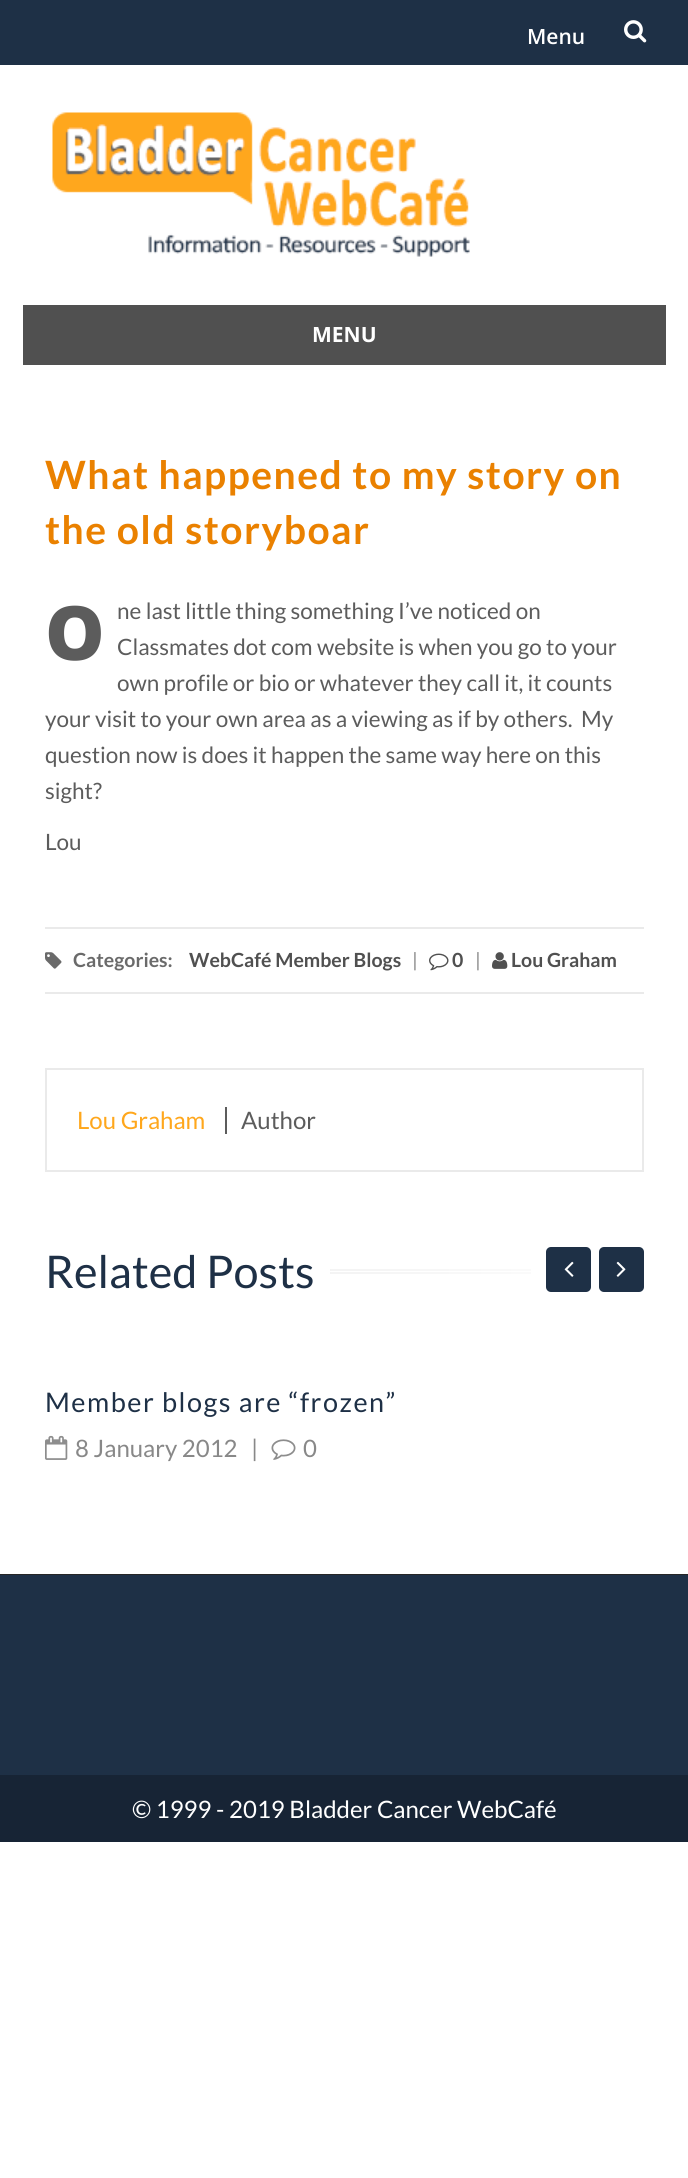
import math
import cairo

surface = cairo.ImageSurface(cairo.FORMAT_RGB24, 688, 2178)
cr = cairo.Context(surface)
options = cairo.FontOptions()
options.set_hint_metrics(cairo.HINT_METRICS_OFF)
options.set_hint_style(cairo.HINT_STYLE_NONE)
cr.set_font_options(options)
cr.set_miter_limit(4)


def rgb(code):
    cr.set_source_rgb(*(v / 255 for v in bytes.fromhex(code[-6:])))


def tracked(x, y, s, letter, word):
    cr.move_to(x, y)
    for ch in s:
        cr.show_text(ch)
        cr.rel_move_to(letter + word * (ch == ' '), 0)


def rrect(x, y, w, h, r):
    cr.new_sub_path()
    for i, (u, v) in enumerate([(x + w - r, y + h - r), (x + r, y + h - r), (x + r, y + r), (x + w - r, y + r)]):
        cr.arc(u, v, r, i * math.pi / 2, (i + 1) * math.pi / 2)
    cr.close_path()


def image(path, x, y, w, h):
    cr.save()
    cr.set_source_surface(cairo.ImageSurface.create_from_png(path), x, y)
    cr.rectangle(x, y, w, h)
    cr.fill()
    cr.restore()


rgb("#ffffff")
cr.paint()
rgb("#1e3046")
cr.rectangle(0, 0, 688, 65)
cr.fill()
image("img/1.png", 624, 20, 23, 23)
image("img/2.png", 52, 112, 418, 145)
for x, y, w, h, color in [
    (23, 305, 643, 60, "#505050"),
    (45, 927, 599, 2, "#eaeaea"),
    (45, 992, 599, 2, "#eaeaea"),
]:
    rgb(color)
    cr.rectangle(x, y, w, h)
    cr.fill()
image("img/3.png", 45, 952, 17, 17)
image("img/4.png", 429, 953, 20, 18)
image("img/5.png", 492, 952, 16, 17)
cr.rectangle(46, 1069, 597, 102)
cr.stroke()
for x, y, w, h, color in [
    (225, 1107, 2, 27, "#5c5c5c"),
    (330, 1269, 201, 2, "#eaeaea"),
    (330, 1272, 201, 2, "#eaeaea"),
]:
    rgb(color)
    cr.rectangle(x, y, w, h)
    cr.fill()
gradient = cairo.LinearGradient(45, 1271, 644, 1271)
gradient.add_color_stop_rgba(0, 1, 1, 1, 0)
gradient.add_color_stop_rgba(1, 1, 1, 1, 0.95)
cr.set_source(gradient)
cr.rectangle(330, 1269, 201, 5)
cr.fill()
rgb("#1e3046")
rrect(546, 1247, 45, 45, 5)
cr.fill()
image("img/6.png", 564, 1261, 10, 16)
rrect(599, 1247, 45, 45, 5)
cr.fill()
image("img/7.png", 616, 1261, 10, 16)
image("img/8.png", 45, 1435, 23, 25)
image("img/9.png", 271, 1439, 25, 21)
for x, y, w, h, color in [
    (0, 1574, 688, 1, "#262626"),
    (0, 1575, 688, 200, "#1e3046"),
    (0, 1775, 688, 67, "#172435"),
]:
    rgb(color)
    cr.rectangle(x, y, w, h)
    cr.fill()
cr.select_font_face("Open Sans SemiBold")
cr.set_font_size(21)
rgb("#ffffff")
cr.move_to(527, 44)
cr.show_text("Menu")
cr.select_font_face("Open Sans", cairo.FONT_SLANT_NORMAL, cairo.FONT_WEIGHT_BOLD)
cr.move_to(312, 342)
cr.show_text("MENU")
cr.select_font_face("Lato", cairo.FONT_SLANT_NORMAL, cairo.FONT_WEIGHT_BOLD)
cr.set_font_size(39)
rgb("#ea8100")
tracked(45, 489, "What happened to my story on", 1.5, 0)
tracked(45, 544, "the old storyboar", 1.5, 0)
cr.select_font_face("Noto Sans Black")
cr.set_font_size(75)
rgb("#5c5c5c")
cr.move_to(45, 660)
cr.show_text("O")
cr.select_font_face("Lato")
cr.set_font_size(22.5)
for x, y, s in [
    (117, 619, "ne last little thing something I’ve noticed on"),
    (117, 655, "Classmates dot com website is when you go to your"),
    (117, 691, "own profile or bio or whatever they call it, it counts"),
    (45, 727, "your visit to your own area as a viewing as if by others.  My"),
    (45, 763, "question now is does it happen the same way here on this"),
    (45, 799, "sight?"),
    (45, 850, "Lou"),
]:
    cr.move_to(x, y)
    cr.show_text(s)
cr.select_font_face("Lato", cairo.FONT_SLANT_NORMAL, cairo.FONT_WEIGHT_BOLD)
cr.set_font_size(19.5)
rgb("#6a6a6a")
cr.move_to(73, 967)
cr.show_text("Categories:")
rgb("#505050")
cr.move_to(189, 967)
cr.show_text("WebCafé Member Blogs")
cr.select_font_face("Lato")
rgb("#888888")
cr.move_to(412, 967)
cr.show_text("|")
cr.select_font_face("Lato", cairo.FONT_SLANT_NORMAL, cairo.FONT_WEIGHT_BOLD)
rgb("#505050")
cr.move_to(452, 967)
cr.show_text("0")
cr.select_font_face("Lato")
rgb("#888888")
cr.move_to(475, 967)
cr.show_text("|")
cr.select_font_face("Lato", cairo.FONT_SLANT_NORMAL, cairo.FONT_WEIGHT_BOLD)
rgb("#505050")
cr.move_to(511, 967)
cr.show_text("Lou Graham")
cr.select_font_face("Lato")
cr.set_font_size(24)
rgb("#ffa71c")
cr.move_to(77, 1129)
cr.show_text("Lou Graham")
rgb("#5c5c5c")
cr.move_to(241, 1129)
cr.show_text("Author")
cr.set_font_size(45)
rgb("#1e3046")
cr.move_to(45, 1288)
cr.show_text("Related Posts")
cr.set_font_size(27)
tracked(45, 1412, "Member blogs are “frozen”", 1.5, 0)
cr.set_font_size(24)
rgb("#888888")
for x, y, s in [
    (75, 1457, "8 January 2012"),
    (251, 1457, "|"),
    (303, 1457, "0"),
]:
    cr.move_to(x, y)
    cr.show_text(s)
rgb("#ffffff")
cr.move_to(132, 1818)
cr.show_text("© 1999 - 2019 Bladder Cancer WebCafé")
surface.write_to_png("page.png")
